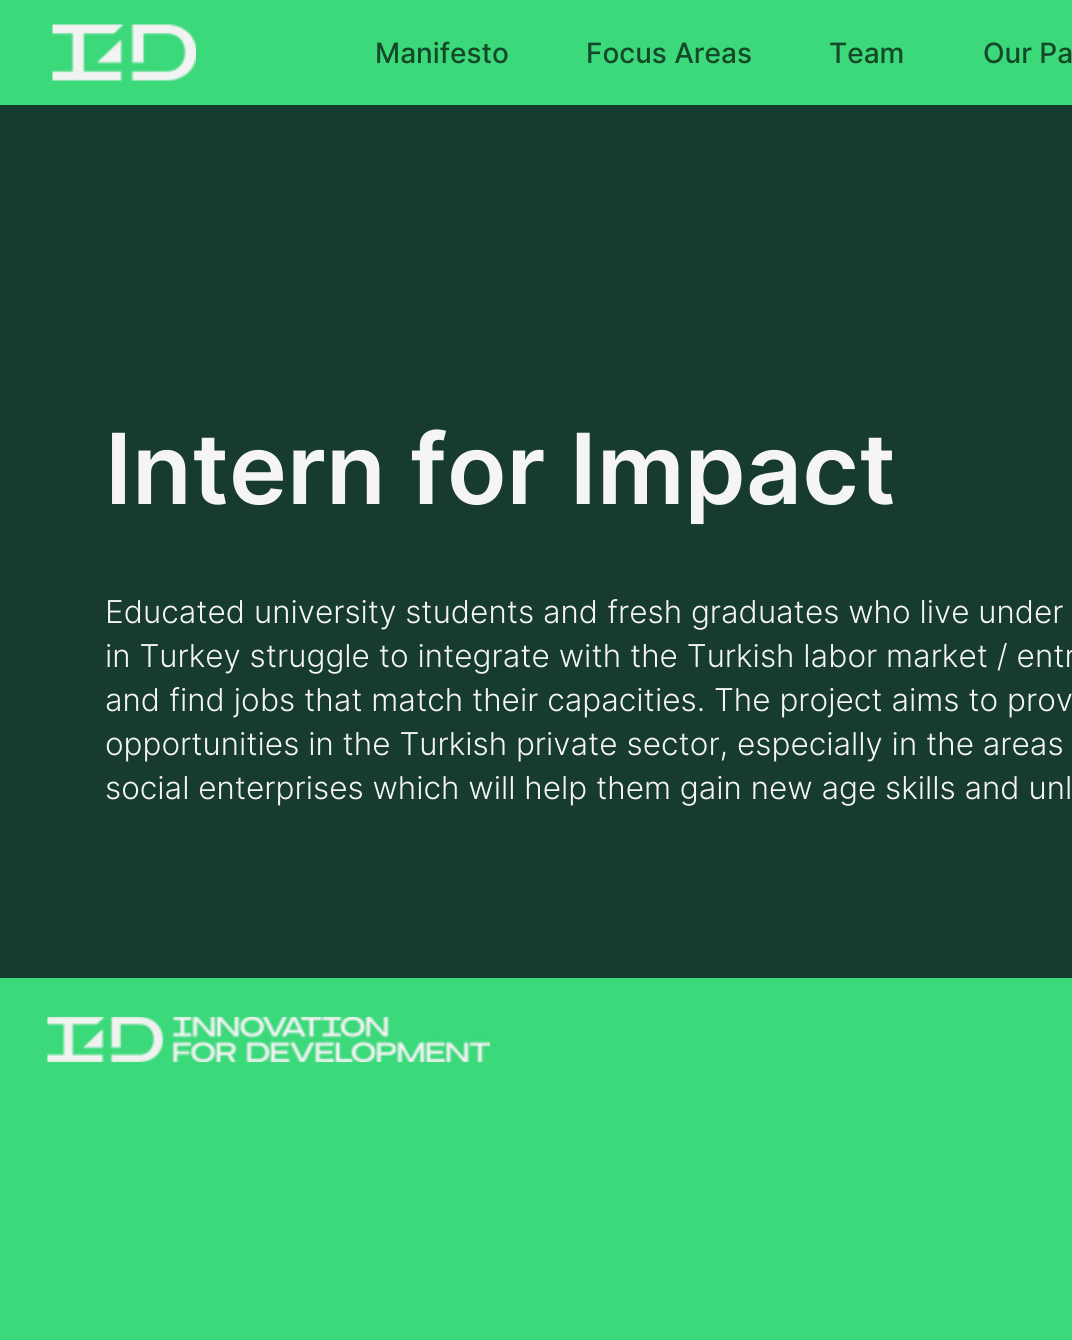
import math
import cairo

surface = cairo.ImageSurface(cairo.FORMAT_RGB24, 1072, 1340)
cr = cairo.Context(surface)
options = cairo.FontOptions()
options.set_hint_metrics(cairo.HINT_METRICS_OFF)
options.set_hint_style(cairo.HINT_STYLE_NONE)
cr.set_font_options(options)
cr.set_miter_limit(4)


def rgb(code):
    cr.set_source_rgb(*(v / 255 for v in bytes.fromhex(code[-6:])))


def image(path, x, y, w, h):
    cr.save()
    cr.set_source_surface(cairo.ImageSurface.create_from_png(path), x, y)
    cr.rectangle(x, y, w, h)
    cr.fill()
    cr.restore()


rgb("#3bd97a")
cr.paint()
image("img/1.png", 52, 24, 144, 57)
rgb("#173b2e")
cr.rectangle(0, 105, 1072, 873)
cr.fill()
image("img/2.png", 47, 1016, 443, 47)
cr.select_font_face("Inter Medium")
cr.set_font_size(28)
rgb("#144829")
for x, y, s in [
    (375, 63, "Manifesto"),
    (586, 63, "Focus Areas"),
    (829, 63, "Team"),
    (983, 63, "Our Pa"),
]:
    cr.move_to(x, y)
    cr.show_text(s)
cr.select_font_face("Inter SemiBold")
cr.set_font_size(98)
rgb("#f5f5f5")
cr.move_to(105, 504)
cr.show_text("Intern for Impact")
cr.select_font_face("Inter Light")
cr.set_font_size(31.5)
for x, y, s in [
    (105, 623, "Educated university students and fresh graduates who live under"),
    (105, 667, "in Turkey struggle to integrate with the Turkish labor market / entr"),
    (105, 711, "and find jobs that match their capacities. The project aims to prov"),
    (105, 755, "opportunities in the Turkish private sector, especially in the areas"),
    (105, 799, "social enterprises which will help them gain new age skills and unl"),
]:
    cr.move_to(x, y)
    cr.show_text(s)
surface.write_to_png("page.png")
